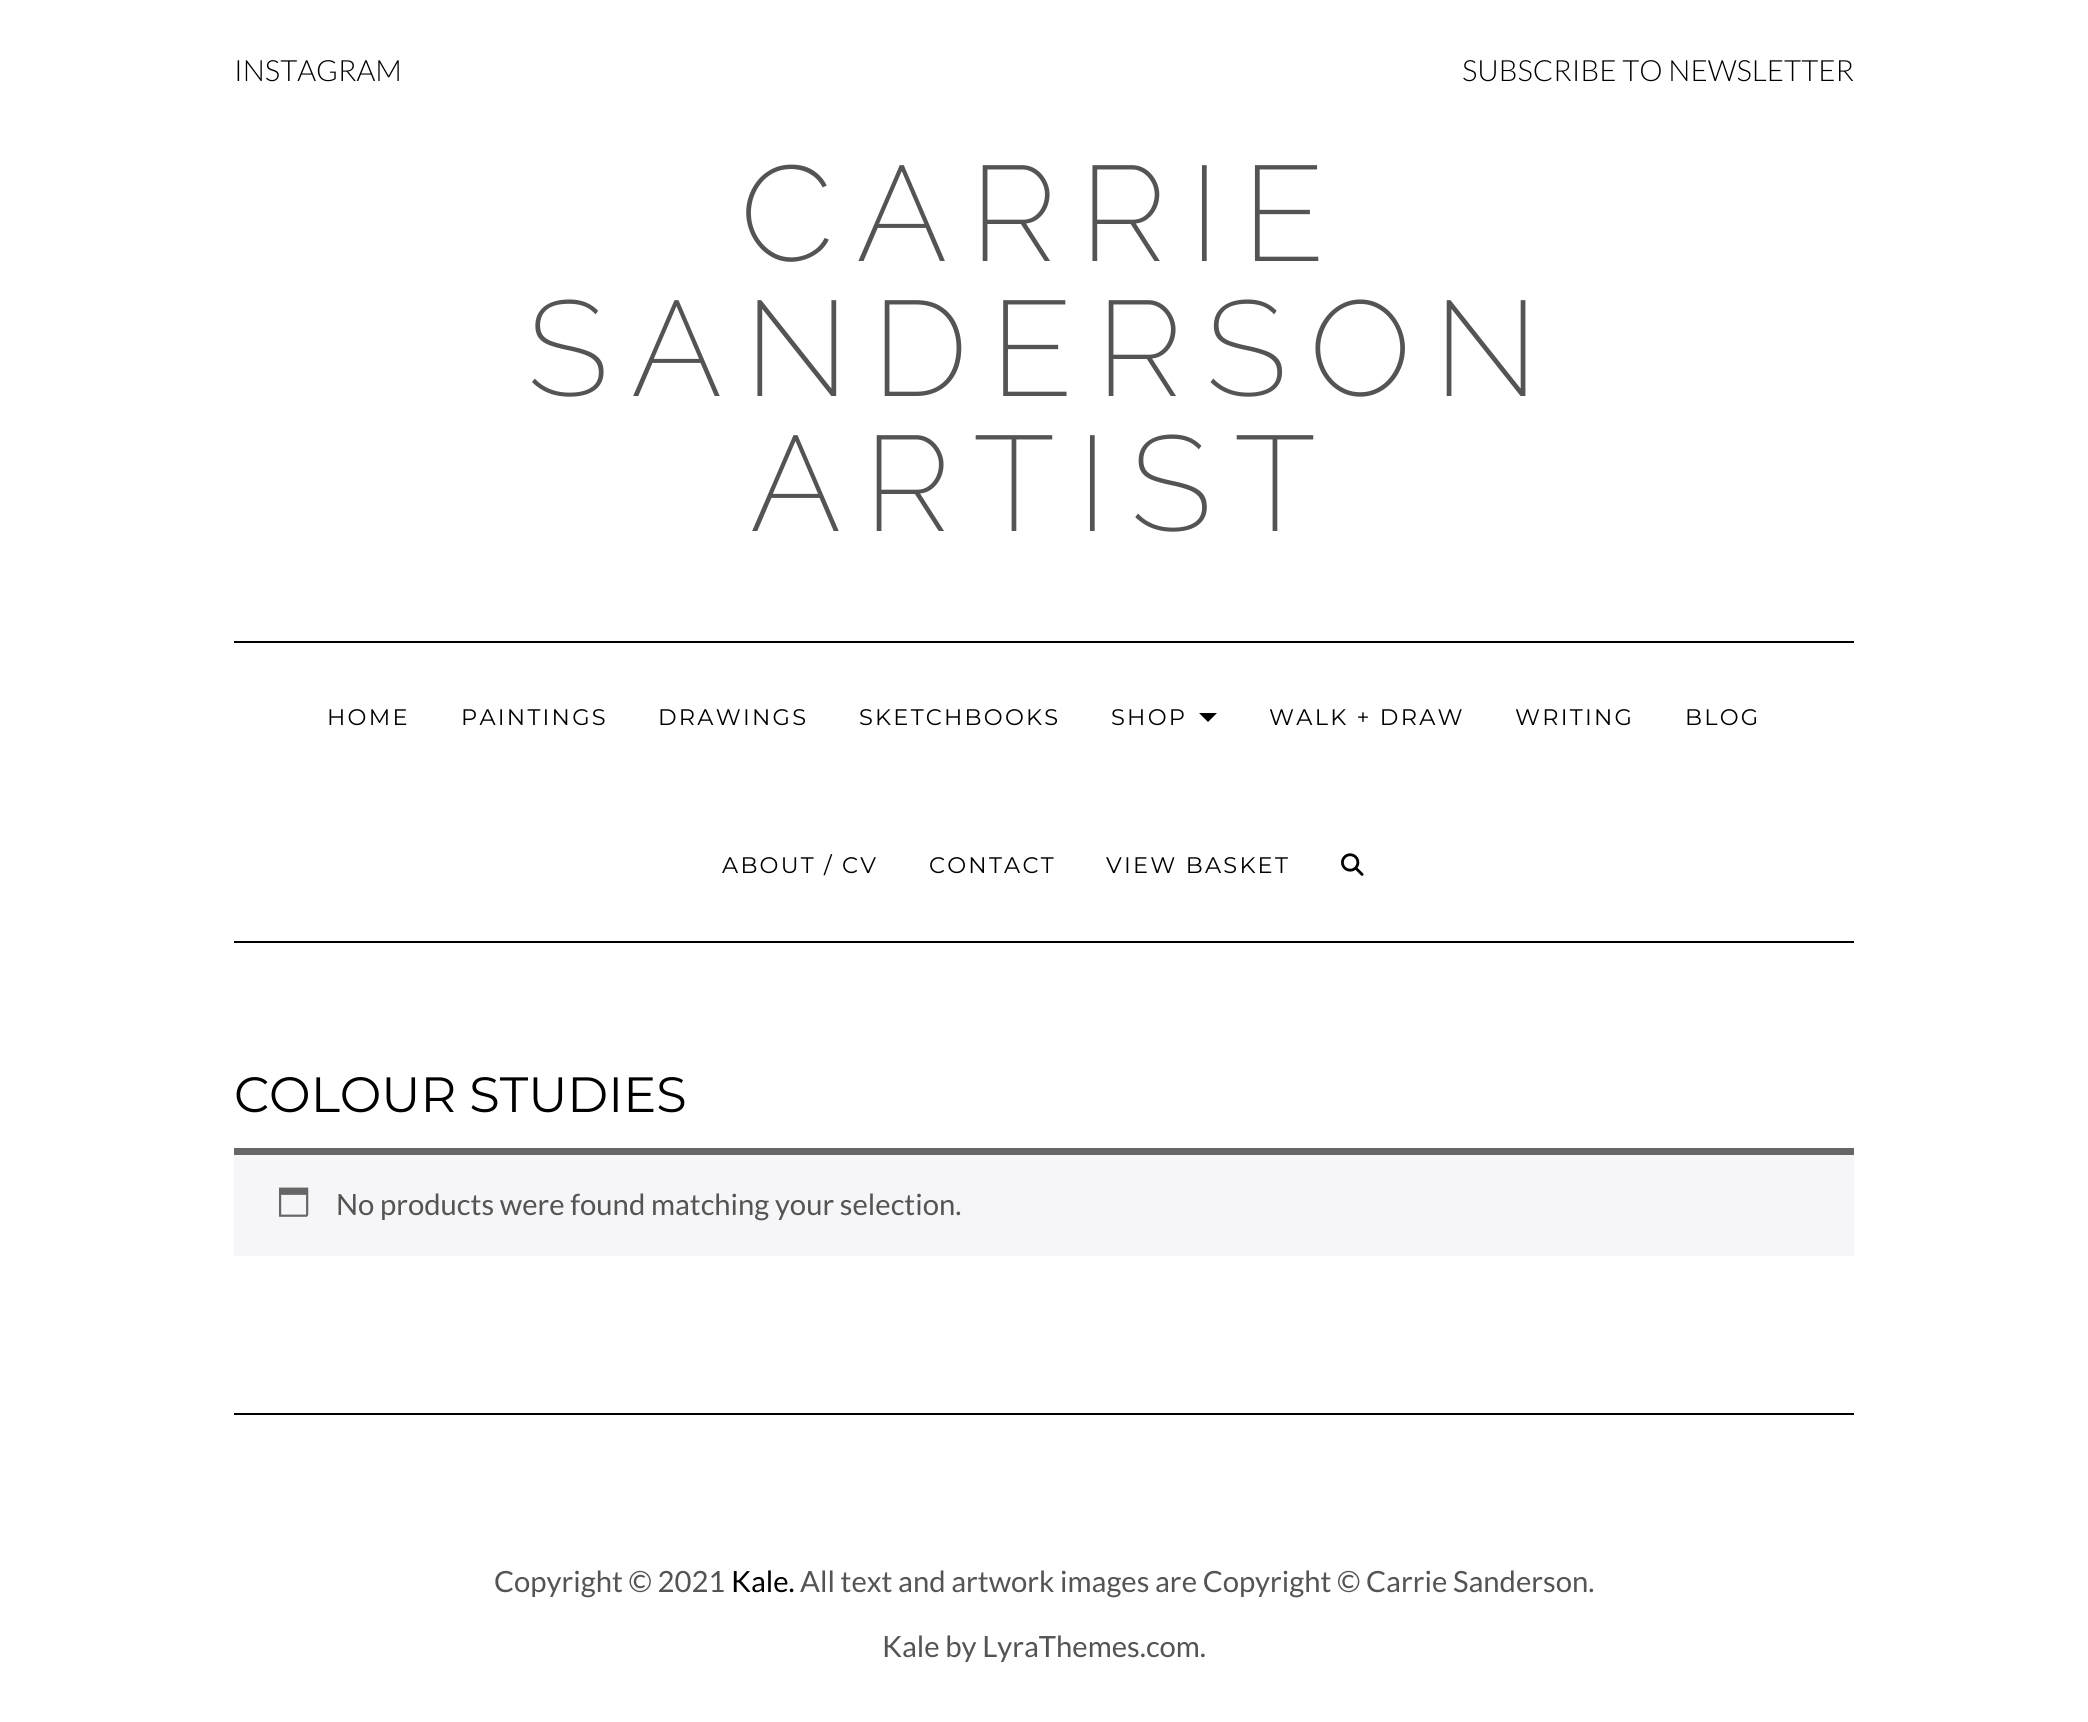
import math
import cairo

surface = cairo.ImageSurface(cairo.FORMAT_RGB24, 2088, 1722)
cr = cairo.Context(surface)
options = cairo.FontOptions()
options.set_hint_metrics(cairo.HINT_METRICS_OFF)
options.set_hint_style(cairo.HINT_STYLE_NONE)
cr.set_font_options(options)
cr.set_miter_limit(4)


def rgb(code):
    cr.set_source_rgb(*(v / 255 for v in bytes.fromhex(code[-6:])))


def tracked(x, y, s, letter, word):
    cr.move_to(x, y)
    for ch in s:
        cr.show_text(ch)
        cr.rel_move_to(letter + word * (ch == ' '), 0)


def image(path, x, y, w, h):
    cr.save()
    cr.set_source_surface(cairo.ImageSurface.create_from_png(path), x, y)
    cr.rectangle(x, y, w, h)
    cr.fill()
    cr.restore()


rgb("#ffffff")
cr.paint()
rgb("#000000")
cr.rectangle(234, 641, 1620, 2)
cr.fill()
cr.rectangle(234, 941, 1620, 2)
cr.fill()
cr.new_path()
cr.move_to(1199, 713)
cr.line_to(1217, 713)
cr.line_to(1208, 722)
cr.close_path()
cr.fill()
image("img/1.png", 1341, 853, 23, 23)
rgb("#f6f5f8")
cr.rectangle(234, 1155, 1620, 101)
cr.fill()
rgb("#666666")
cr.rectangle(234, 1148, 1620, 7)
cr.fill()
image("img/2.png", 279, 1187, 30, 30)
rgb("#000000")
cr.rectangle(234, 1413, 1620, 2)
cr.fill()
cr.select_font_face("Lato Light")
cr.set_font_size(29.25)
cr.move_to(234, 81)
cr.show_text("INSTAGRAM")
cr.move_to(1462, 81)
cr.show_text("SUBSCRIBE TO NEWSLETTER")
cr.select_font_face("Raleway Thin")
cr.set_font_size(135)
rgb("#545454")
for x, y, s in [
    (740, 261, "CARRIE"),
    (527, 396, "SANDERSON"),
    (750, 531, "ARTIST"),
]:
    tracked(x, y, s, 22.5, 0)
cr.select_font_face("Montserrat")
cr.set_font_size(22.5)
rgb("#000000")
for x, y, s in [
    (327, 725, "HOME"),
    (461, 725, "PAINTINGS"),
    (658, 725, "DRAWINGS"),
    (859, 725, "SKETCHBOOKS"),
    (1111, 725, "SHOP"),
    (1269, 725, "WALK + DRAW"),
    (1515, 725, "WRITING"),
    (1685, 725, "BLOG"),
    (722, 873, "ABOUT / CV"),
    (929, 873, "CONTACT"),
    (1106, 873, "VIEW BASKET"),
]:
    tracked(x, y, s, 2.25, 0)
cr.set_font_size(49.5)
cr.move_to(234, 1112)
cr.show_text("COLOUR STUDIES")
cr.select_font_face("Lato")
cr.set_font_size(29.25)
rgb("#545454")
cr.move_to(336, 1215)
cr.show_text("No products were found matching your selection.")
cr.move_to(494, 1592)
cr.show_text("Copyright © 2021")
rgb("#000000")
cr.move_to(731, 1592)
cr.show_text("Kale.")
rgb("#545454")
cr.move_to(800, 1592)
cr.show_text("All text and artwork images are Copyright © Carrie Sanderson.")
cr.move_to(882, 1657)
cr.show_text("Kale by LyraThemes.com.")
surface.write_to_png("page.png")
